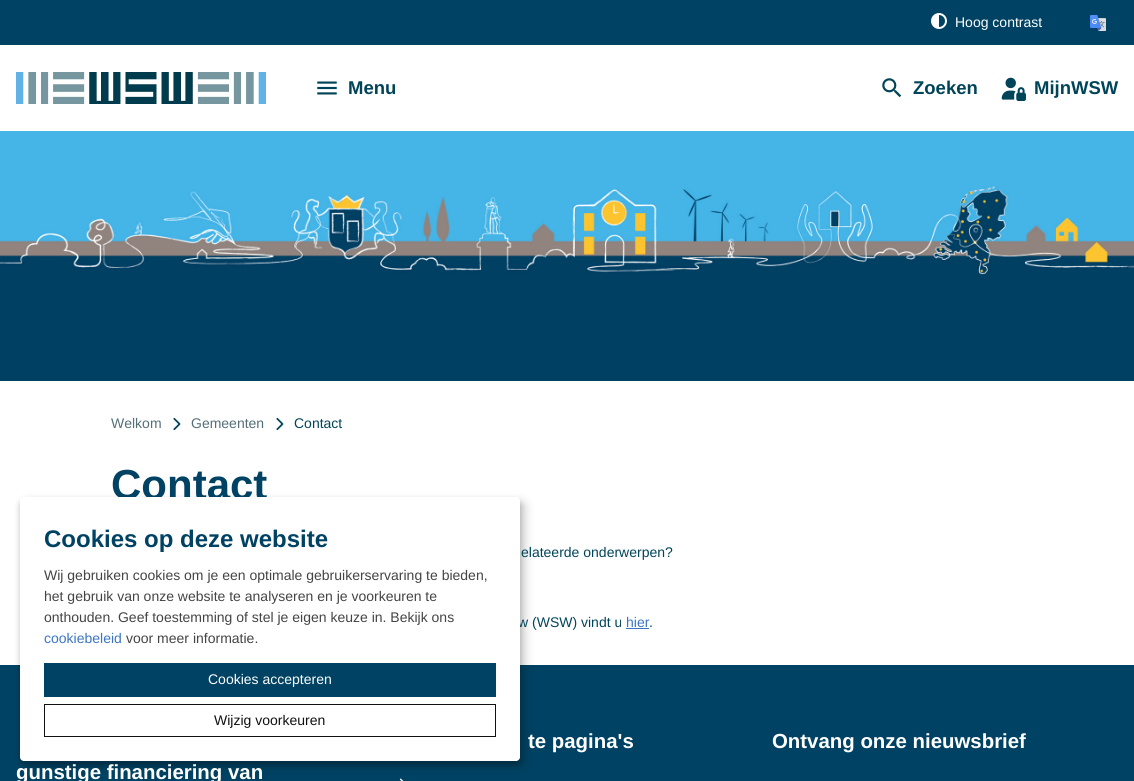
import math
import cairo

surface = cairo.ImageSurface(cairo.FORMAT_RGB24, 1134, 781)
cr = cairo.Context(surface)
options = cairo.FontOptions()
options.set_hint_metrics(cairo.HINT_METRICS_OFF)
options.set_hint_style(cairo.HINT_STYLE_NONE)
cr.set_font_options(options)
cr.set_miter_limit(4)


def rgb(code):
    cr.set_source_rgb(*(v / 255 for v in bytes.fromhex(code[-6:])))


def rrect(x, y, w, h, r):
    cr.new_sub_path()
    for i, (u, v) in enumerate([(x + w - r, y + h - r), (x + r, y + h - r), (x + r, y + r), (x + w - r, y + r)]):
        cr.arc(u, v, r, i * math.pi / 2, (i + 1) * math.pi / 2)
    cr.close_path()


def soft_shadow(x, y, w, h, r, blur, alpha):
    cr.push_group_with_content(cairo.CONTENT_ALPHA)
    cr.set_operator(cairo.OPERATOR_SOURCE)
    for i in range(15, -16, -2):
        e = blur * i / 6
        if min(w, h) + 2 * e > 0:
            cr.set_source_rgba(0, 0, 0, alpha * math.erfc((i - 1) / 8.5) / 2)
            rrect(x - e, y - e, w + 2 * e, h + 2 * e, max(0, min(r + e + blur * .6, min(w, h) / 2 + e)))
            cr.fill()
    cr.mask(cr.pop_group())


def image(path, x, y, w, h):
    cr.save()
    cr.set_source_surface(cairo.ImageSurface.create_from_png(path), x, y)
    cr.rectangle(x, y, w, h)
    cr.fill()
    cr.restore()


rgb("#ffffff")
cr.paint()
rgb("#004263")
cr.rectangle(0, 0, 1134, 45)
cr.fill()
image("img/1.png", 931, 13, 16, 16)
image("img/2.png", 1090, 15, 16, 16)
image("img/3.png", 16, 72, 250, 32)
image("img/4.png", 317, 81, 20, 14)
image("img/5.png", 882, 78, 20, 20)
image("img/6.png", 1001, 77, 25, 24)
image("img/7.png", 0, 131, 1134, 250)
image("img/8.png", 173, 417, 8, 14)
image("img/8.png", 276, 417, 8, 14)
rgb("#3a75c4")
cr.rectangle(626, 628, 23, 1)
cr.fill()
rgb("#004263")
cr.rectangle(0, 665, 1134, 116)
cr.fill()
image("img/9.png", 399, 778, 5, 3)
rgb("#000000")
soft_shadow(25, 502, 500, 264, 4, 5, 0.19)
soft_shadow(20, 501, 500, 264, 4, 3, 0.2)
cr.select_font_face("Liberation Sans")
cr.set_font_size(14)
rgb("#ffffff")
cr.move_to(955, 27)
cr.show_text("Hoog contrast")
cr.select_font_face("Liberation Sans", cairo.FONT_SLANT_NORMAL, cairo.FONT_WEIGHT_BOLD)
cr.set_font_size(18.5)
rgb("#004459")
for x, y, s in [
    (348, 94, "Menu"),
    (913, 94, "Zoeken"),
    (1034, 94, "MijnWSW"),
]:
    cr.move_to(x, y)
    cr.show_text(s)
cr.select_font_face("Liberation Sans")
cr.set_font_size(14)
rgb("#546e7a")
cr.move_to(111, 428)
cr.show_text("Welkom")
cr.move_to(191, 428)
cr.show_text("Gemeenten")
cr.save()
cr.rectangle(294, 413, 48, 21)
cr.clip()
rgb("#004459")
cr.move_to(294, 428)
cr.show_text("Contact")
cr.restore()
cr.select_font_face("Liberation Sans", cairo.FONT_SLANT_NORMAL, cairo.FONT_WEIGHT_BOLD)
cr.set_font_size(42)
rgb("#004263")
cr.move_to(111, 499)
cr.show_text("Contact")
cr.select_font_face("Liberation Sans")
cr.set_font_size(14)
rgb("#004459")
cr.move_to(521, 557)
cr.show_text("elateerde onderwerpen?")
cr.move_to(518, 627)
cr.show_text("w (WSW) vindt u")
rgb("#3a75c4")
cr.move_to(626, 627)
cr.show_text("hier")
rgb("#004459")
cr.move_to(649, 627)
cr.show_text(".")
rgb("#ffffff")
rrect(20, 497, 500, 264, 4)
cr.fill()
cr.select_font_face("Liberation Sans", cairo.FONT_SLANT_NORMAL, cairo.FONT_WEIGHT_BOLD)
cr.set_font_size(24)
rgb("#004263")
cr.move_to(44, 547)
cr.show_text("Cookies op deze website")
cr.select_font_face("Liberation Sans")
cr.set_font_size(14)
rgb("#444444")
for x, y, s in [
    (44, 580, "Wij gebruiken cookies om je een optimale gebruikerservaring te bieden,"),
    (44, 601, "het gebruik van onze website te analyseren en je voorkeuren te"),
    (44, 622, "onthouden. Geef toestemming of stel je eigen keuze in. Bekijk ons"),
]:
    cr.move_to(x, y)
    cr.show_text(s)
rgb("#3a75c4")
cr.move_to(44, 643)
cr.show_text("cookiebeleid")
rgb("#444444")
cr.move_to(126, 643)
cr.show_text("voor meer informatie.")
rgb("#004263")
cr.rectangle(44, 663, 452, 34)
cr.fill()
rgb("#ffffff")
cr.move_to(208, 684)
cr.show_text("Cookies accepteren")
cr.rectangle(44.5, 704.5, 451, 32)
rgb("#111111")
cr.set_line_width(1)
cr.stroke()
cr.move_to(214, 725)
cr.show_text("Wijzig voorkeuren")
cr.select_font_face("Liberation Sans", cairo.FONT_SLANT_NORMAL, cairo.FONT_WEIGHT_BOLD)
cr.set_font_size(20.4)
rgb("#ffffff")
for x, y, s in [
    (528, 748, "te pagina's"),
    (772, 748, "Ontvang onze nieuwsbrief"),
    (16, 779, "gunstige financiering van"),
]:
    cr.move_to(x, y)
    cr.show_text(s)
surface.write_to_png("page.png")
